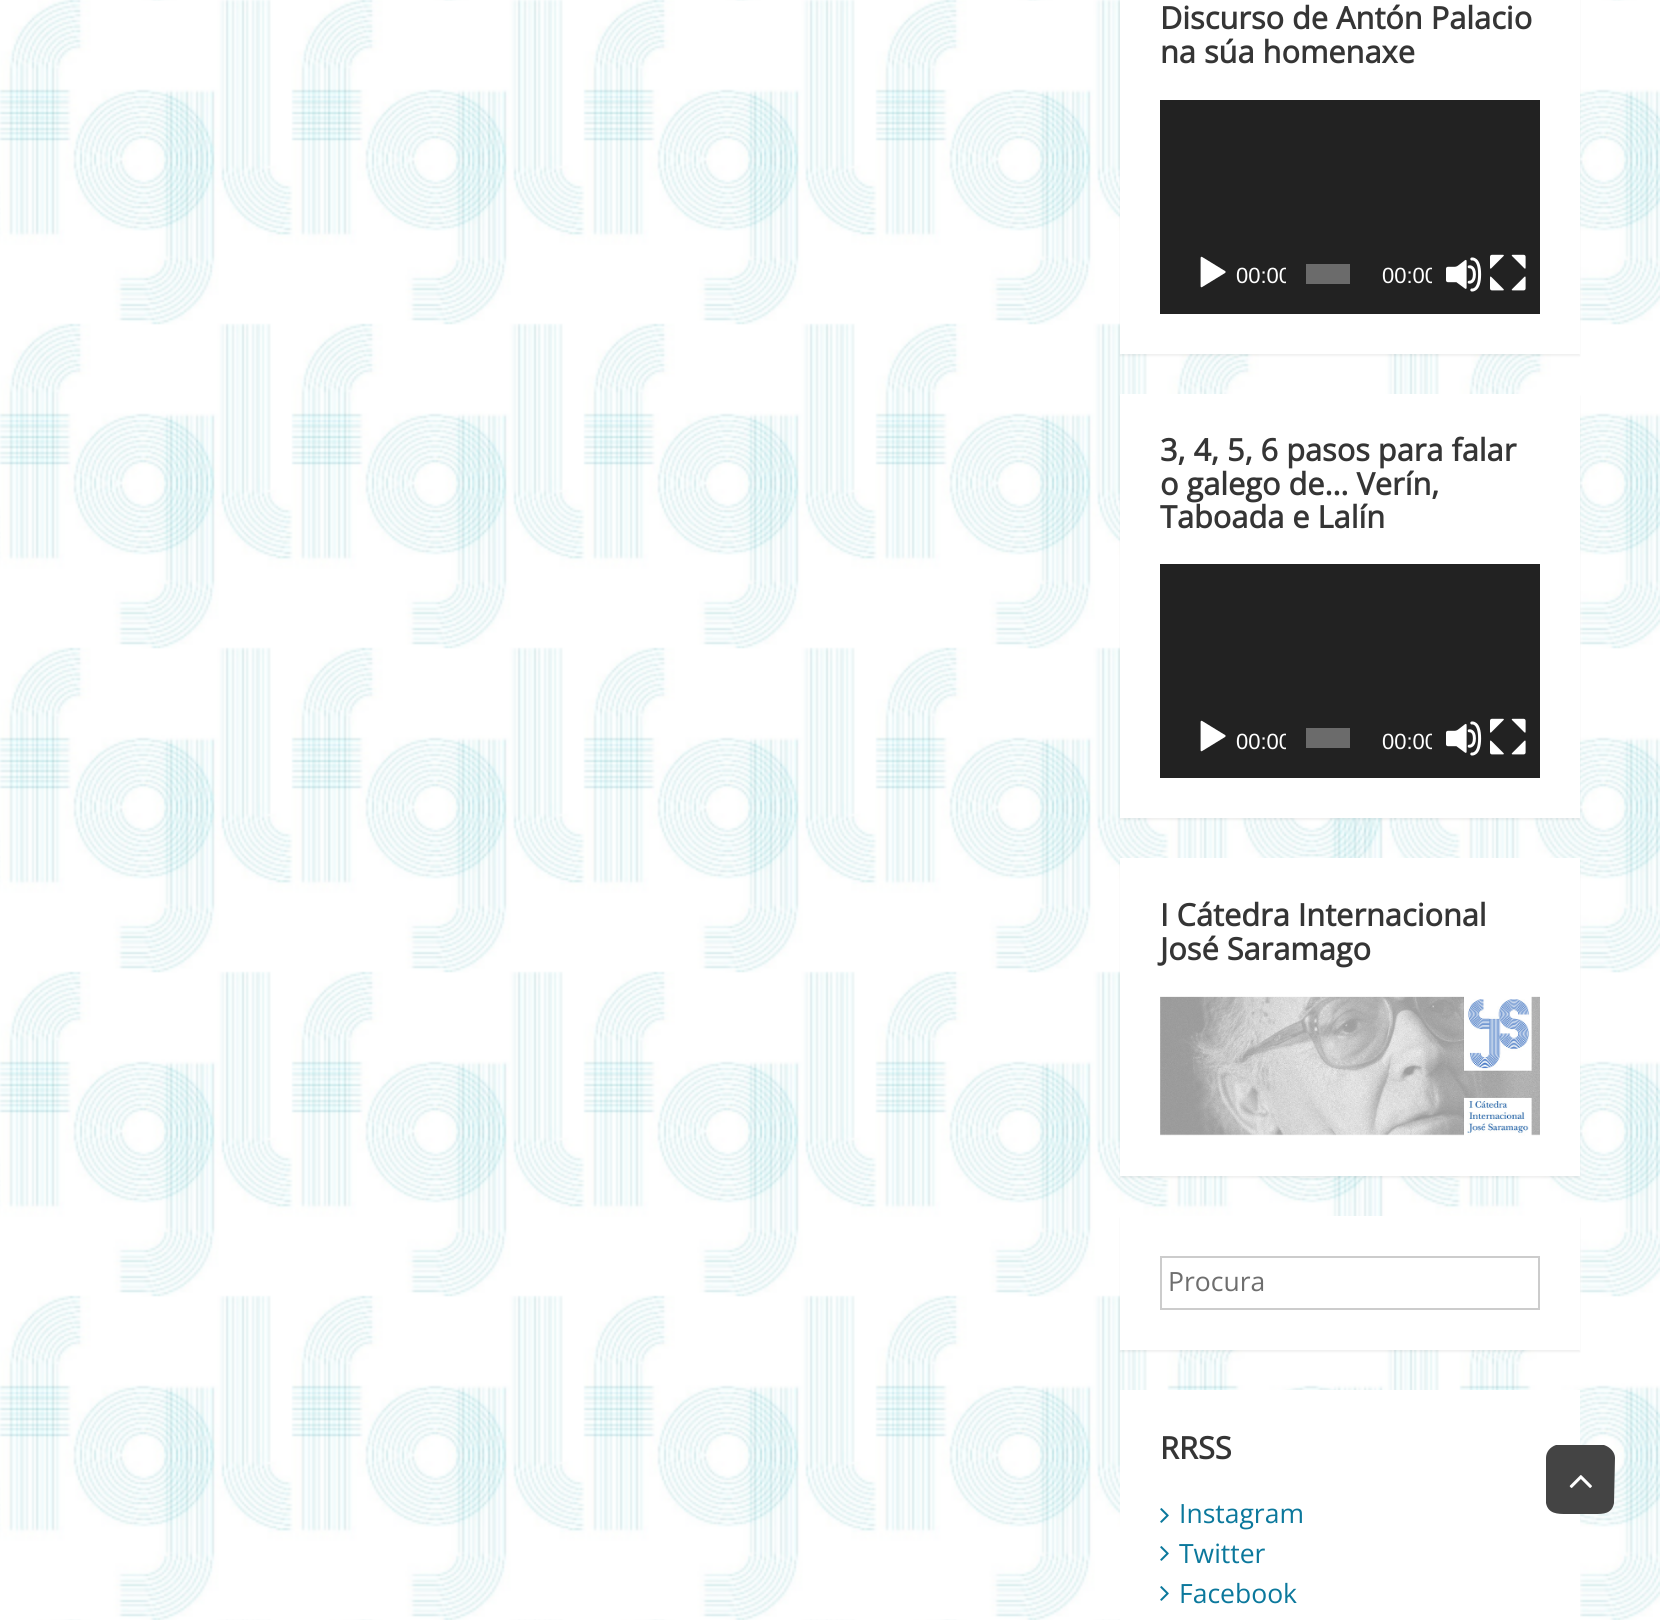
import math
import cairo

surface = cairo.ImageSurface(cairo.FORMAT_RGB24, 1660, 1620)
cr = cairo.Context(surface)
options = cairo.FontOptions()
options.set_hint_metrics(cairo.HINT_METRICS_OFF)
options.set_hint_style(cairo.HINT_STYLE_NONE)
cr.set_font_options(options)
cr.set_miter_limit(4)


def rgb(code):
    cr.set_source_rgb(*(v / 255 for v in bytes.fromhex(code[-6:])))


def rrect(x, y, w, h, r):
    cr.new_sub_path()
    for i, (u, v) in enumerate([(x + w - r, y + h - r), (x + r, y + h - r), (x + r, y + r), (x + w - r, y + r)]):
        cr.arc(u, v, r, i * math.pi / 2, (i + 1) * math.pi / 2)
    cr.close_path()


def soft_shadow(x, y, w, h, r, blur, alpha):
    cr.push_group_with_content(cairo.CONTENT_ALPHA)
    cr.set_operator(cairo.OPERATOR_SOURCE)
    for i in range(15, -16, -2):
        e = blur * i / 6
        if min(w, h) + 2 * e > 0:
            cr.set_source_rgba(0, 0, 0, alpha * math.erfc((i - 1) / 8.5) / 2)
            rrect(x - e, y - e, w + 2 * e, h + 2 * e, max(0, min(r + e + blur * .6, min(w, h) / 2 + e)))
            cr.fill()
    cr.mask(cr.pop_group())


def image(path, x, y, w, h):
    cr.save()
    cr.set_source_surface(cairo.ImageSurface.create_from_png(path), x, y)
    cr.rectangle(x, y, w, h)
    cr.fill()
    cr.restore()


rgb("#ffffff")
cr.paint()
image("img/1.png", 0, 0, 1660, 1620)
rgb("#000000")
soft_shadow(1120, -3, 460, 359, 0, 1, 0.06)
rgb("#ffffff")
cr.rectangle(1120, 0, 460, 354)
cr.fill()
rgb("#222222")
cr.rectangle(1160, 100, 380, 214)
cr.fill()
image("img/2.png", 1200, 256, 26, 32)
rgb("#6b6b6b")
cr.rectangle(1306, 264, 44, 20)
cr.fill()
image("img/3.png", 1446, 257, 36, 35)
image("img/4.png", 1490, 254, 36, 37)
rgb("#000000")
soft_shadow(1120, 396, 460, 424, 0, 1, 0.06)
rgb("#ffffff")
cr.rectangle(1120, 394, 460, 424)
cr.fill()
rgb("#222222")
cr.rectangle(1160, 564, 380, 214)
cr.fill()
image("img/2.png", 1200, 720, 26, 32)
rgb("#6b6b6b")
cr.rectangle(1306, 728, 44, 20)
cr.fill()
image("img/3.png", 1446, 721, 36, 35)
image("img/4.png", 1490, 718, 36, 37)
rgb("#000000")
soft_shadow(1120, 860, 460, 318, 0, 1, 0.06)
rgb("#ffffff")
cr.rectangle(1120, 858, 460, 318)
cr.fill()
image("img/5.png", 1160, 996, 380, 140)
rgb("#000000")
soft_shadow(1120, 1218, 460, 134, 0, 1, 0.06)
rgb("#ffffff")
cr.rectangle(1120, 1216, 460, 134)
cr.fill()
cr.rectangle(1161, 1257, 378, 52)
rgb("#cccccc")
cr.stroke()
rgb("#ffffff")
cr.rectangle(1120, 1390, 460, 230)
cr.fill()
image("img/6.png", 1160, 1508, 9, 15)
image("img/6.png", 1160, 1546, 9, 15)
image("img/6.png", 1160, 1586, 9, 15)
rgb("#444444")
cr.new_path()
cr.move_to(1615, 1458)
cr.line_to(1614, 1503)
cr.curve_to(1612, 1514, 1603, 1514, 1595, 1514)
cr.line_to(1566, 1514)
cr.curve_to(1558, 1514, 1548, 1514, 1546, 1503)
cr.line_to(1546, 1458)
cr.curve_to(1546, 1452, 1550, 1447, 1556, 1445)
cr.line_to(1604, 1445)
cr.curve_to(1610, 1447, 1615, 1452, 1615, 1458)
cr.close_path()
cr.fill()
image("img/7.png", 1569, 1475, 23, 13)
cr.select_font_face("Open Sans", cairo.FONT_SLANT_NORMAL, cairo.FONT_WEIGHT_BOLD)
cr.set_font_size(30.75)
rgb("#353535")
cr.move_to(1160, 29)
cr.show_text("Discurso de Antón Palacio")
cr.move_to(1160, 63)
cr.show_text("na súa homenaxe")
cr.save()
cr.rectangle(1224, 234, 62, 80)
cr.clip()
cr.select_font_face("Liberation Sans")
cr.set_font_size(22)
rgb("#ffffff")
cr.move_to(1236, 283)
cr.show_text("00:00")
cr.restore()
cr.save()
cr.rectangle(1370, 234, 62, 80)
cr.clip()
cr.select_font_face("Liberation Sans")
cr.set_font_size(22)
rgb("#ffffff")
cr.move_to(1382, 283)
cr.show_text("00:00")
cr.restore()
for x, y, s in [
    (1160, 461, "3, 4, 5, 6 pasos para falar"),
    (1160, 495, "o galego de… Verín,"),
    (1160, 528, "Taboada e Lalín"),
]:
    cr.move_to(x, y)
    cr.show_text(s)
cr.save()
cr.rectangle(1224, 698, 62, 80)
cr.clip()
cr.select_font_face("Liberation Sans")
cr.set_font_size(22)
rgb("#ffffff")
cr.move_to(1236, 749)
cr.show_text("00:00")
cr.restore()
cr.save()
cr.rectangle(1370, 698, 62, 80)
cr.clip()
cr.select_font_face("Liberation Sans")
cr.set_font_size(22)
rgb("#ffffff")
cr.move_to(1382, 749)
cr.show_text("00:00")
cr.restore()
cr.move_to(1160, 926)
cr.show_text("I Cátedra Internacional")
cr.move_to(1160, 960)
cr.show_text("José Saramago")
cr.select_font_face("Open Sans")
cr.set_font_size(26.5)
rgb("#6e6e6e")
cr.move_to(1168, 1291)
cr.show_text("Procura")
cr.select_font_face("Open Sans", cairo.FONT_SLANT_NORMAL, cairo.FONT_WEIGHT_BOLD)
cr.set_font_size(30.75)
rgb("#353535")
cr.move_to(1160, 1459)
cr.show_text("RRSS")
cr.select_font_face("Open Sans")
cr.set_font_size(26.5)
rgb("#0b789c")
for x, y, s in [
    (1179, 1523, "Instagram"),
    (1179, 1563, "Twitter"),
    (1179, 1603, "Facebook"),
]:
    cr.move_to(x, y)
    cr.show_text(s)
surface.write_to_png("page.png")
